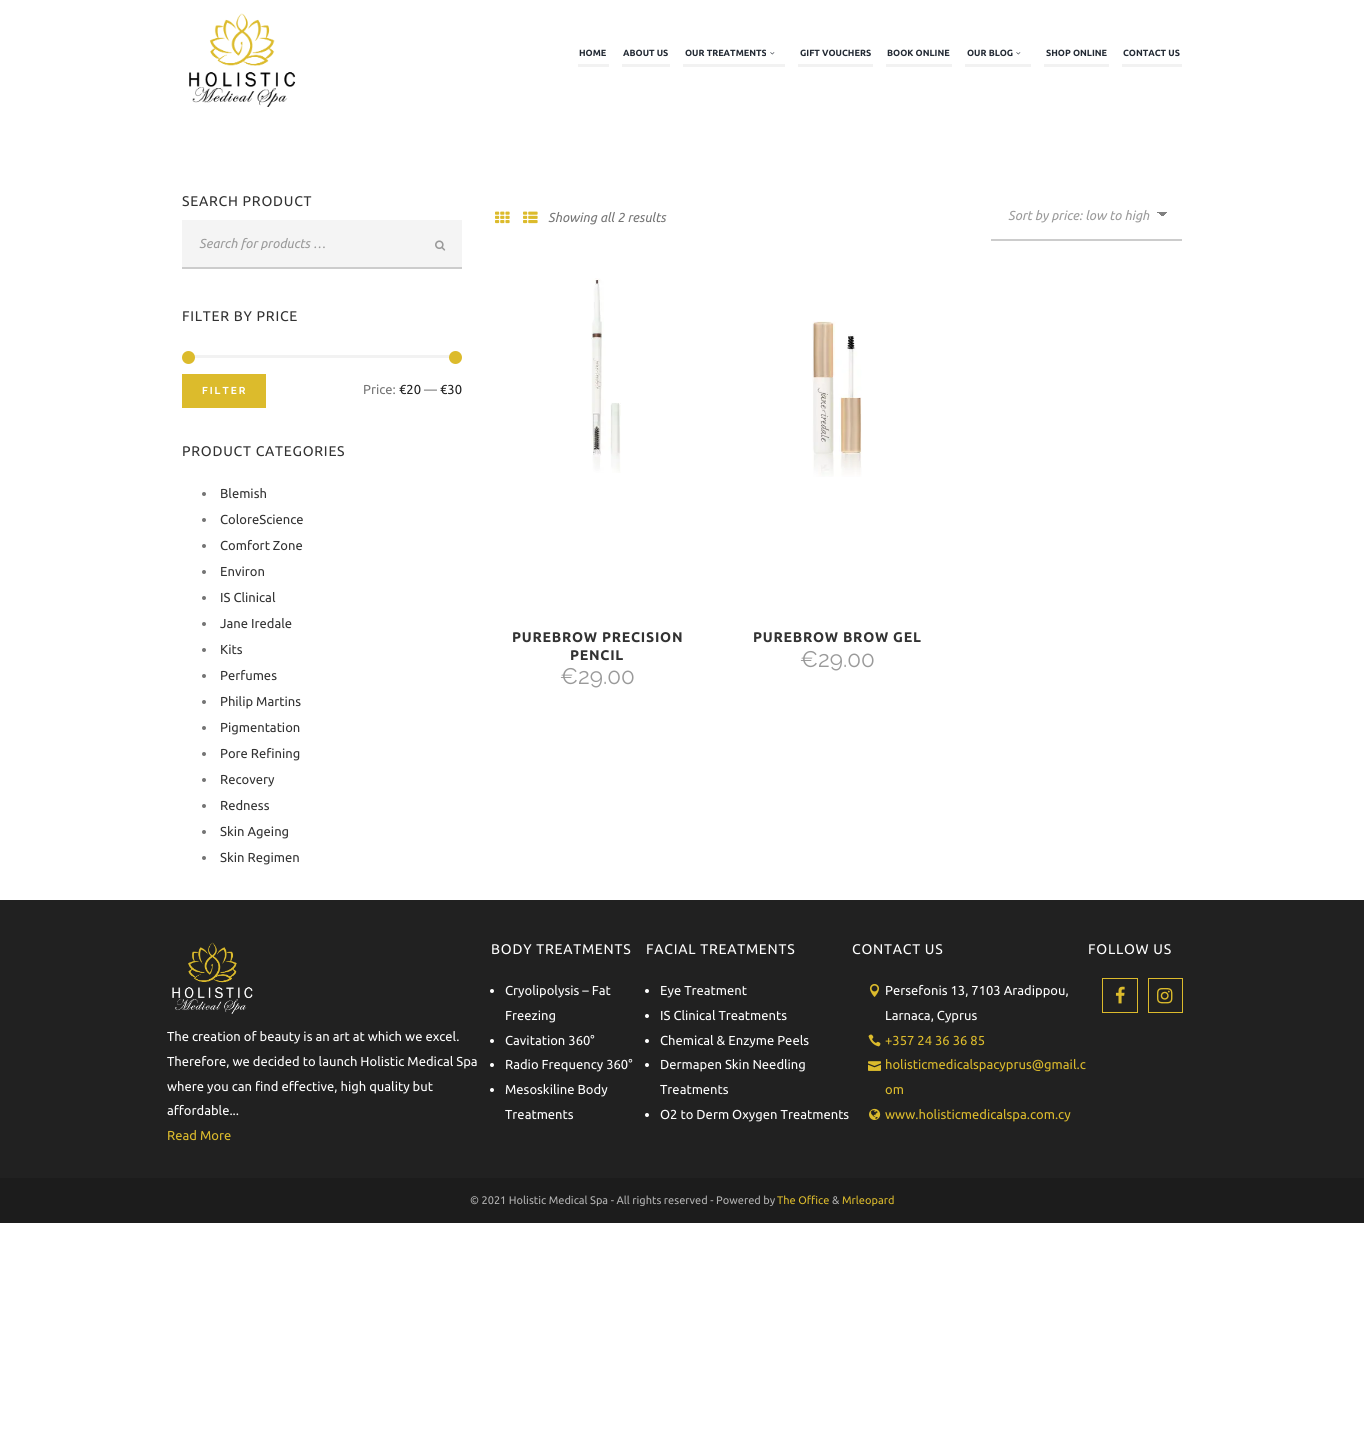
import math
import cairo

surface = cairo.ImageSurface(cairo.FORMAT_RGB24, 1364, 1450)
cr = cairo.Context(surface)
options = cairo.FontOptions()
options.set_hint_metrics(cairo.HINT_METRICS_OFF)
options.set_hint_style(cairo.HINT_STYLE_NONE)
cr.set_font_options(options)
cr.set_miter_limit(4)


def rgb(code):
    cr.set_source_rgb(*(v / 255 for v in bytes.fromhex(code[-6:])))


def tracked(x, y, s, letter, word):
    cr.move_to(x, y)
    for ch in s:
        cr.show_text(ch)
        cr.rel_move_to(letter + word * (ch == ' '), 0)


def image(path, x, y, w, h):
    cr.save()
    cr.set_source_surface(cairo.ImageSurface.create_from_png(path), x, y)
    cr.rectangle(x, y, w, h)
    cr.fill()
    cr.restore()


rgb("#ffffff")
cr.paint()
image("img/1.png", 189, 13, 107, 94)
for x, y, w, h, color in [
    (578, 64, 31, 3, "#f2f2f2"),
    (622, 64, 48, 3, "#f2f2f2"),
    (683, 64, 102, 3, "#f2f2f2"),
]:
    rgb(color)
    cr.rectangle(x, y, w, h)
    cr.fill()
image("img/2.png", 770, 52, 5, 3)
for x, y, w, h, color in [
    (798, 64, 75, 3, "#f2f2f2"),
    (886, 64, 66, 3, "#f2f2f2"),
    (965, 64, 66, 3, "#f2f2f2"),
]:
    rgb(color)
    cr.rectangle(x, y, w, h)
    cr.fill()
image("img/2.png", 1016, 52, 5, 3)
for x, y, w, h, color in [
    (1044, 64, 65, 3, "#f2f2f2"),
    (1122, 64, 60, 3, "#f2f2f2"),
    (182, 220, 280, 47, "#f4f4f4"),
    (182, 267, 280, 2, "#cccccc"),
]:
    rgb(color)
    cr.rectangle(x, y, w, h)
    cr.fill()
image("img/3.png", 435, 240, 11, 11)
rgb("#f2f2f2")
cr.rectangle(189, 355, 267, 3)
cr.fill()
rgb("#dcbb2c")
cr.arc(188.5, 357.5, 6.5, 0, 2 * math.pi)
cr.fill()
cr.arc(455.5, 357.5, 6.5, 0, 2 * math.pi)
cr.fill()
cr.rectangle(182, 374, 84, 34)
cr.fill()
rgb("#757575")
cr.arc(204, 494, 2, 0, 2 * math.pi)
cr.fill()
cr.arc(204, 520, 2, 0, 2 * math.pi)
cr.fill()
cr.arc(204, 546, 2, 0, 2 * math.pi)
cr.fill()
cr.arc(204, 572, 2, 0, 2 * math.pi)
cr.fill()
cr.arc(204, 598, 2, 0, 2 * math.pi)
cr.fill()
cr.arc(204, 624, 2, 0, 2 * math.pi)
cr.fill()
cr.arc(204, 650, 2, 0, 2 * math.pi)
cr.fill()
cr.arc(204, 676, 2, 0, 2 * math.pi)
cr.fill()
cr.arc(204, 702, 2, 0, 2 * math.pi)
cr.fill()
cr.arc(204, 728, 2, 0, 2 * math.pi)
cr.fill()
cr.arc(204, 754, 2, 0, 2 * math.pi)
cr.fill()
cr.arc(204, 780, 2, 0, 2 * math.pi)
cr.fill()
cr.arc(204, 806, 2, 0, 2 * math.pi)
cr.fill()
cr.arc(204, 832, 2, 0, 2 * math.pi)
cr.fill()
cr.arc(204, 858, 2, 0, 2 * math.pi)
cr.fill()
image("img/4.png", 495, 211, 15, 13)
image("img/5.png", 523, 211, 15, 13)
gradient = cairo.LinearGradient(1162, 212, 1167, 217)
gradient.add_color_stop_rgba(0.5, 0.502, 0.502, 0.502, 1)
gradient.add_color_stop_rgba(0.5, 1, 1, 1, 1)
cr.set_source(gradient)
cr.rectangle(1162, 212, 5, 4)
cr.fill()
gradient = cairo.LinearGradient(1157, 217, 1162, 212)
gradient.add_color_stop_rgba(0.5, 1, 1, 1, 1)
gradient.add_color_stop_rgba(0.5, 0.502, 0.502, 0.502, 1)
cr.set_source(gradient)
cr.rectangle(1157, 212, 5, 4)
cr.fill()
rgb("#cccccc")
cr.rectangle(991, 239, 191, 2)
cr.fill()
image("img/6.png", 591, 278, 30, 195)
image("img/7.png", 812, 321, 50, 156)
rgb("#212121")
cr.rectangle(0, 900, 1364, 278)
cr.fill()
rgb("#ffffff")
cr.arc(492, 991, 2, 0, 2 * math.pi)
cr.fill()
cr.arc(492, 1041, 2, 0, 2 * math.pi)
cr.fill()
cr.arc(492, 1065, 2, 0, 2 * math.pi)
cr.fill()
cr.arc(492, 1090, 2, 0, 2 * math.pi)
cr.fill()
cr.arc(647, 991, 2, 0, 2 * math.pi)
cr.fill()
cr.arc(647, 1016, 2, 0, 2 * math.pi)
cr.fill()
cr.arc(647, 1041, 2, 0, 2 * math.pi)
cr.fill()
cr.arc(647, 1065, 2, 0, 2 * math.pi)
cr.fill()
cr.arc(647, 1115, 2, 0, 2 * math.pi)
cr.fill()
image("img/8.png", 869, 984, 11, 13)
image("img/9.png", 868, 1034, 13, 13)
image("img/10.png", 868, 1061, 13, 10)
image("img/11.png", 869, 1108, 12, 12)
cr.rectangle(1102.5, 978.5, 35, 34)
rgb("#dcbb2c")
cr.set_line_width(1)
cr.stroke()
image("img/12.png", 1115, 986, 10, 18)
cr.rectangle(1148.5, 978.5, 34, 34)
cr.stroke()
image("img/13.png", 1157, 988, 16, 16)
image("img/14.png", 172, 942, 81, 72)
rgb("#1c1c1c")
cr.rectangle(0, 1178, 1364, 45)
cr.fill()
cr.select_font_face("Ubuntu", cairo.FONT_SLANT_NORMAL, cairo.FONT_WEIGHT_BOLD)
cr.set_font_size(9)
rgb("#232a34")
for x, y, s in [
    (579, 56, "HOME"),
    (623, 56, "ABOUT US"),
    (685, 56, "OUR TREATMENTS"),
    (800, 56, "GIFT VOUCHERS"),
    (887, 56, "BOOK ONLINE"),
    (967, 56, "OUR BLOG"),
    (1046, 56, "SHOP ONLINE"),
    (1123, 56, "CONTACT US"),
]:
    cr.move_to(x, y)
    cr.show_text(s)
cr.select_font_face("Ubuntu")
cr.set_font_size(14)
rgb("#323232")
tracked(182, 206, "SEARCH PRODUCT", 0.75, 0)
cr.save()
cr.rectangle(199, 236, 231, 14)
cr.clip()
cr.select_font_face("Ubuntu", cairo.FONT_SLANT_ITALIC)
cr.set_font_size(13)
rgb("#9a9a9a")
cr.move_to(199, 248)
cr.show_text("Search for products …")
cr.restore()
tracked(182, 321, "FILTER BY PRICE", 0.75, 0)
cr.select_font_face("Raleway", cairo.FONT_SLANT_NORMAL, cairo.FONT_WEIGHT_BOLD)
cr.set_font_size(10)
rgb("#ffffff")
tracked(202, 394, "FILTER", 2, 0)
cr.select_font_face("Ubuntu")
cr.set_font_size(13)
rgb("#757575")
cr.move_to(363, 394)
cr.show_text("Price:")
rgb("#222222")
cr.move_to(399, 394)
cr.show_text("€20")
rgb("#757575")
cr.move_to(424, 394)
cr.show_text("—")
rgb("#222222")
cr.move_to(440, 394)
cr.show_text("€30")
cr.set_font_size(14)
rgb("#323232")
tracked(182, 456, "PRODUCT CATEGORIES", 0.75, 0)
cr.set_font_size(13)
for x, y, s in [
    (220, 498, "Blemish"),
    (220, 524, "ColoreScience"),
    (220, 550, "Comfort Zone"),
    (220, 576, "Environ"),
    (220, 602, "IS Clinical"),
    (220, 628, "Jane Iredale"),
    (220, 654, "Kits"),
    (220, 680, "Perfumes"),
    (220, 706, "Philip Martins"),
    (220, 732, "Pigmentation"),
    (220, 758, "Pore Refining"),
    (220, 784, "Recovery"),
    (220, 810, "Redness"),
    (220, 836, "Skin Ageing"),
    (220, 862, "Skin Regimen"),
]:
    cr.move_to(x, y)
    cr.show_text(s)
cr.select_font_face("Ubuntu", cairo.FONT_SLANT_ITALIC)
rgb("#757575")
cr.move_to(548, 222)
cr.show_text("Showing all 2 results")
rgb("#9a9a9a")
cr.move_to(1008, 220)
cr.show_text("Sort by price: low to high")
cr.select_font_face("Ubuntu", cairo.FONT_SLANT_NORMAL, cairo.FONT_WEIGHT_BOLD)
cr.set_font_size(14)
rgb("#323232")
tracked(512, 642, "PUREBROW PRECISION", 0.75, 0)
tracked(570, 660, "PENCIL", 0.75, 0)
cr.select_font_face("Raleway")
cr.set_font_size(22.5)
rgb("#9a9a9a")
cr.move_to(560, 684)
cr.show_text("€29.00")
cr.select_font_face("Ubuntu", cairo.FONT_SLANT_NORMAL, cairo.FONT_WEIGHT_BOLD)
cr.set_font_size(14)
rgb("#323232")
tracked(753, 642, "PUREBROW BROW GEL", 0.75, 0)
cr.select_font_face("Raleway")
cr.set_font_size(22.5)
rgb("#9a9a9a")
cr.move_to(800, 667)
cr.show_text("€29.00")
cr.select_font_face("Ubuntu")
cr.set_font_size(14)
rgb("#ffffff")
tracked(491, 954, "BODY TREATMENTS", 0.75, 0)
cr.set_font_size(13)
for x, y, s in [
    (505, 995, "Cryolipolysis – Fat"),
    (505, 1020, "Freezing"),
    (505, 1045, "Cavitation 360°"),
    (505, 1069, "Radio Frequency 360°"),
    (505, 1094, "Mesoskiline Body"),
    (505, 1119, "Treatments"),
]:
    cr.move_to(x, y)
    cr.show_text(s)
cr.set_font_size(14)
tracked(646, 954, "FACIAL TREATMENTS", 0.75, 0)
cr.set_font_size(13)
for x, y, s in [
    (660, 995, "Eye Treatment"),
    (660, 1020, "IS Clinical Treatments"),
    (660, 1045, "Chemical & Enzyme Peels"),
    (660, 1069, "Dermapen Skin Needling"),
    (660, 1094, "Treatments"),
    (660, 1119, "O2 to Derm Oxygen Treatments"),
]:
    cr.move_to(x, y)
    cr.show_text(s)
cr.set_font_size(14)
tracked(852, 954, "CONTACT US", 0.75, 0)
cr.set_font_size(13)
cr.move_to(885, 995)
cr.show_text("Persefonis 13, 7103 Aradippou,")
cr.move_to(885, 1020)
cr.show_text("Larnaca, Cyprus")
rgb("#dcbb2c")
for x, y, s in [
    (885, 1045, "+357 24 36 36 85"),
    (885, 1069, "holisticmedicalspacyprus@gmail.c"),
    (885, 1094, "om"),
    (885, 1119, "www.holisticmedicalspa.com.cy"),
]:
    cr.move_to(x, y)
    cr.show_text(s)
cr.set_font_size(14)
rgb("#ffffff")
tracked(1088, 954, "FOLLOW US", 0.75, 0)
cr.set_font_size(13)
for x, y, s in [
    (167, 1041, "The creation of beauty is an art at which we excel."),
    (167, 1066, "Therefore, we decided to launch Holistic Medical Spa"),
    (167, 1091, "where you can find effective, high quality but"),
    (167, 1115, "affordable..."),
]:
    cr.move_to(x, y)
    cr.show_text(s)
rgb("#dcbb2c")
cr.move_to(167, 1140)
cr.show_text("Read More")
cr.set_font_size(11)
rgb("#b2b2b2")
cr.move_to(470, 1204)
cr.show_text("© 2021 Holistic Medical Spa - All rights reserved - Powered by")
rgb("#dcbb2c")
cr.move_to(777, 1204)
cr.show_text("The Office")
rgb("#b2b2b2")
cr.move_to(832, 1204)
cr.show_text("&")
rgb("#dcbb2c")
cr.move_to(842, 1204)
cr.show_text("Mrleopard")
surface.write_to_png("page.png")
